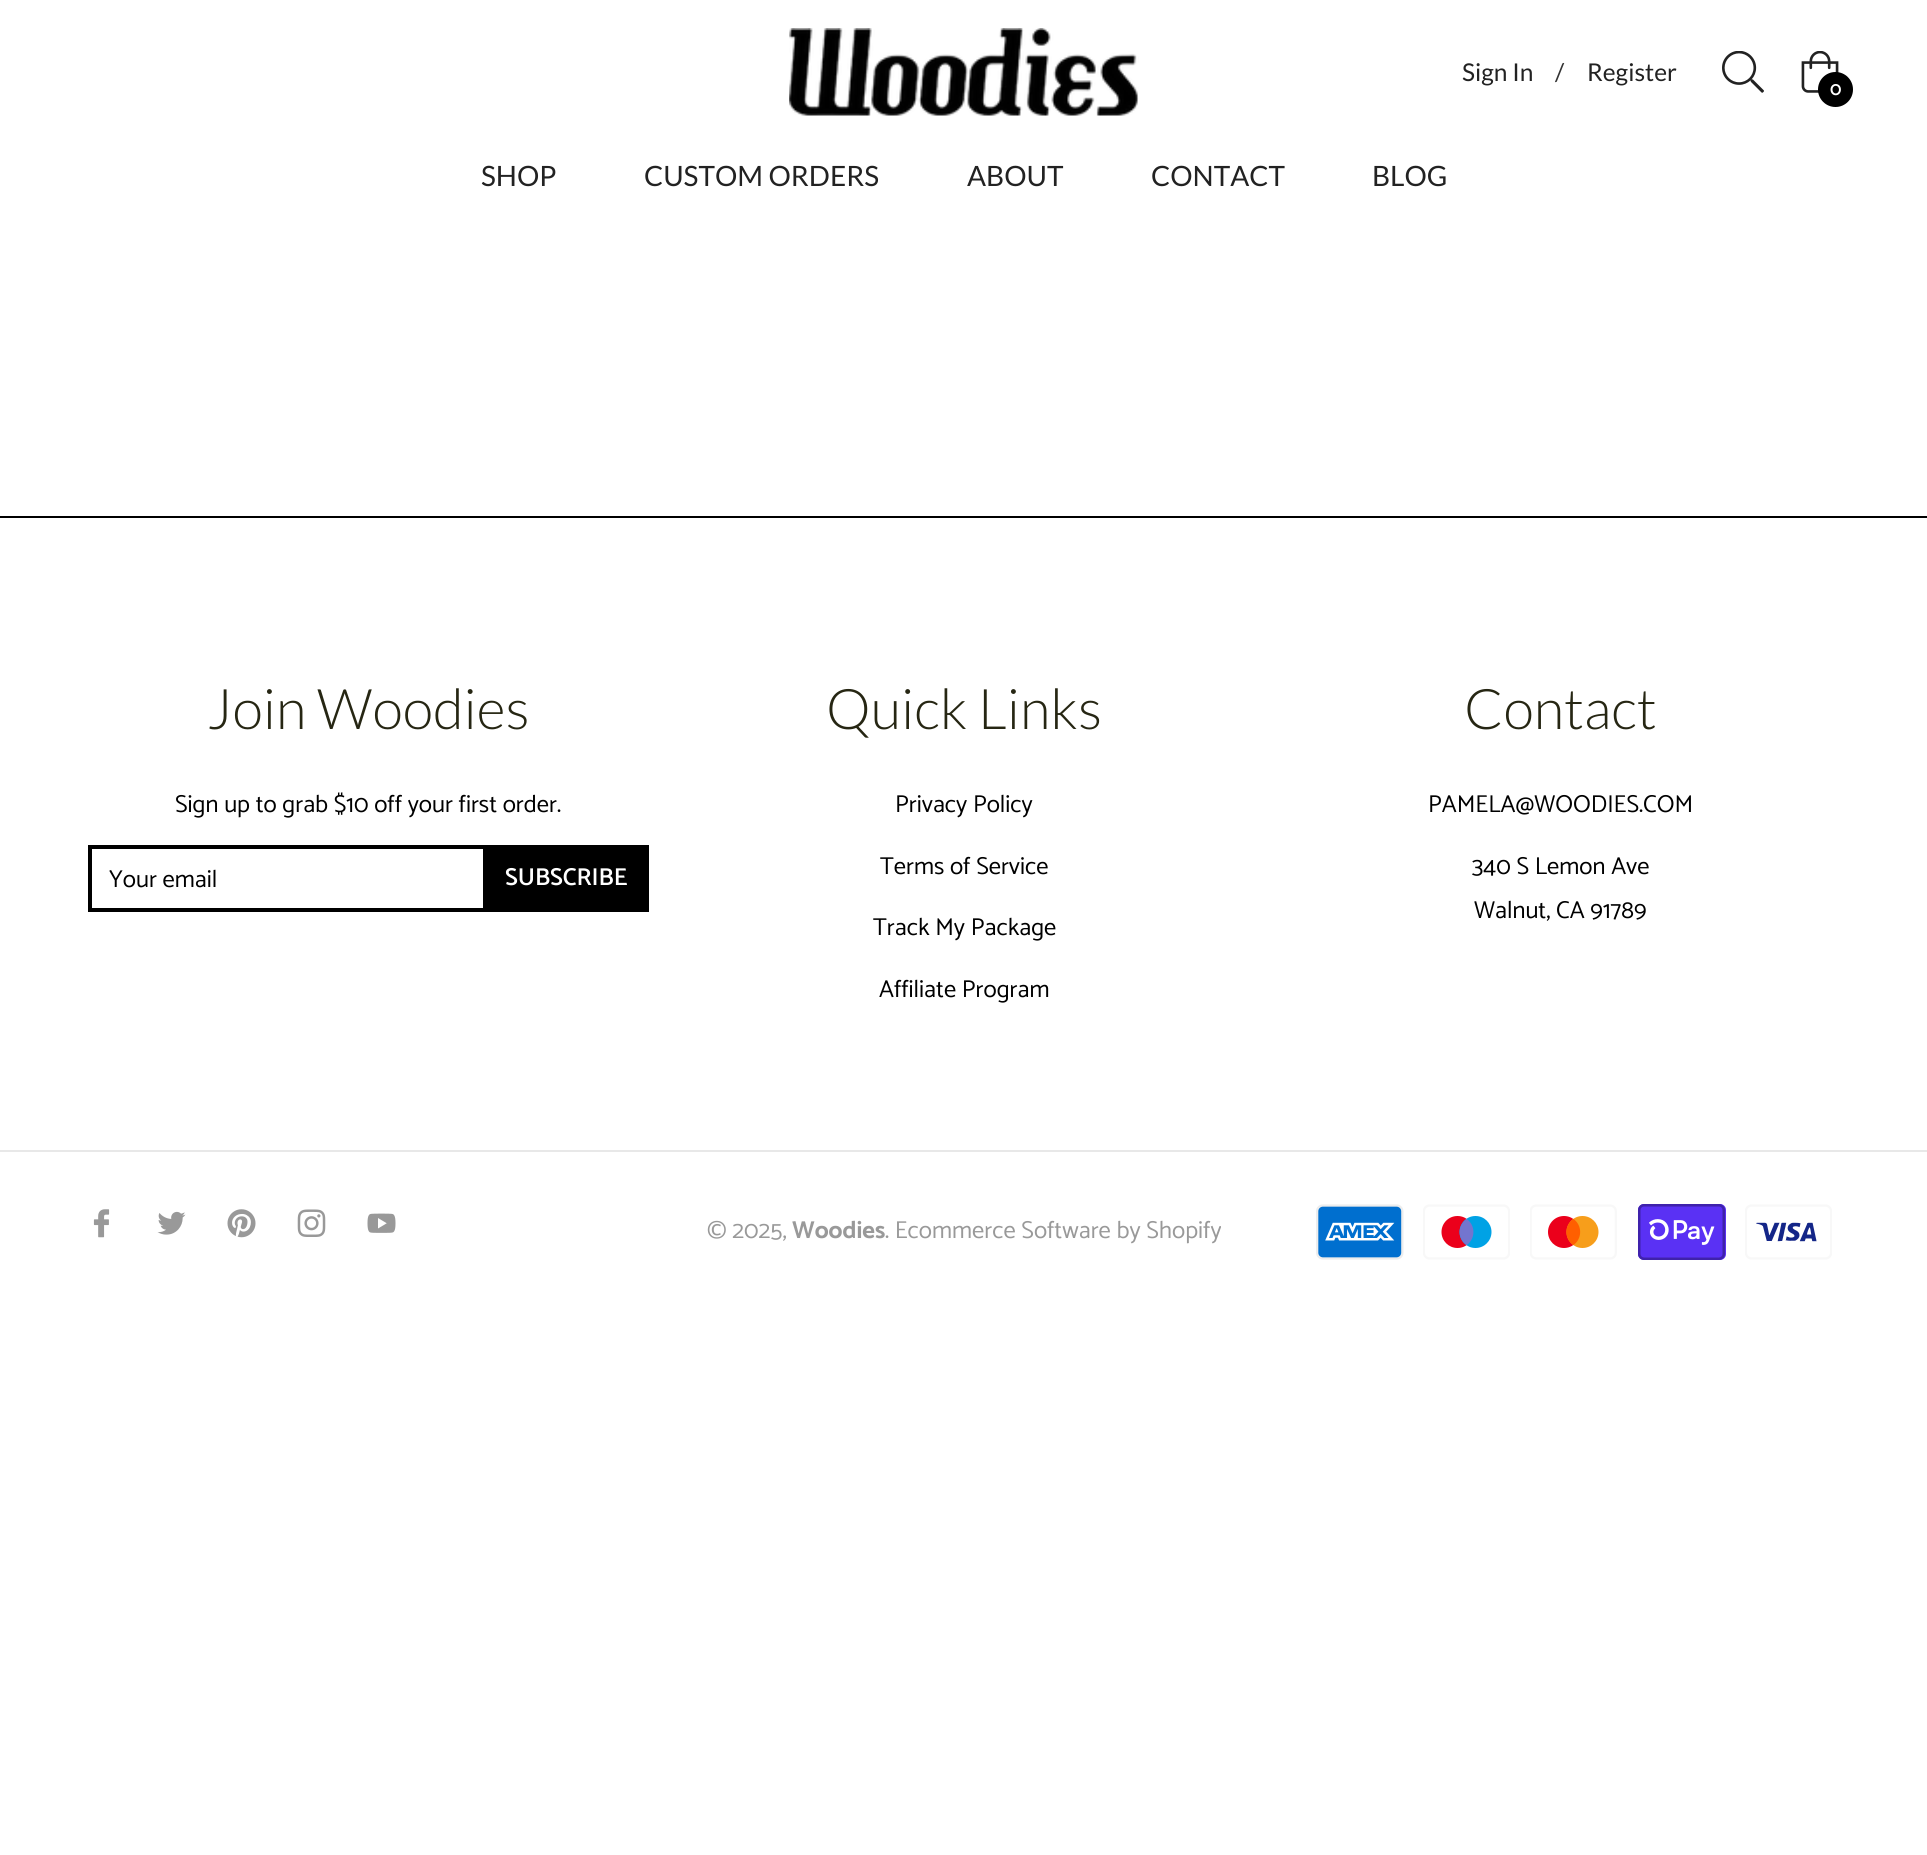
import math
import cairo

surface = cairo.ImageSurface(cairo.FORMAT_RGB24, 1927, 1855)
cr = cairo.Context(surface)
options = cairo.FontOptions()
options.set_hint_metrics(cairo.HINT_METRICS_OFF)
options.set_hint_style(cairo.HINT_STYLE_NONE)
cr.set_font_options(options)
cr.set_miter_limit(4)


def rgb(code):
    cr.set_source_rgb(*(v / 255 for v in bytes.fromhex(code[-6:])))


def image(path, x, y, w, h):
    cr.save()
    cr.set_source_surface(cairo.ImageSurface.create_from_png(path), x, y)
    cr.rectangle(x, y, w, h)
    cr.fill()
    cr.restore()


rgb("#ffffff")
cr.paint()
image("img/1.png", 789, 28, 350, 88)
image("img/2.png", 1722, 51, 42, 42)
image("img/3.png", 1801, 51, 38, 42)
rgb("#000000")
cr.arc(1835.5, 89.5, 17.5, 0, 2 * math.pi)
cr.fill()
cr.rectangle(0, 516, 1927, 2)
cr.fill()
cr.rectangle(90, 847, 395, 63)
cr.set_line_width(4)
cr.stroke()
cr.rectangle(487, 845, 162, 67)
cr.fill()
rgb("#e8e8e8")
cr.rectangle(0, 1150, 1927, 2)
cr.fill()
image("img/4.png", 93, 1209, 17, 29)
image("img/5.png", 157, 1211, 29, 24)
image("img/6.png", 227, 1209, 29, 29)
image("img/7.png", 297, 1209, 29, 28)
image("img/8.png", 367, 1213, 29, 20)
image("img/9.png", 1316, 1204, 88, 56)
image("img/10.png", 1423, 1204, 87, 56)
image("img/11.png", 1530, 1204, 87, 56)
image("img/12.png", 1638, 1204, 88, 56)
image("img/13.png", 1745, 1204, 87, 56)
cr.select_font_face("Lato")
cr.set_font_size(24.5)
rgb("#222222")
cr.move_to(1462, 81)
cr.show_text("Sign In")
rgb("#333333")
cr.move_to(1555, 81)
cr.show_text("/")
rgb("#222222")
cr.move_to(1587, 81)
cr.show_text("Register")
cr.select_font_face("Catamaran SemiBold")
cr.set_font_size(19)
rgb("#ffffff")
cr.move_to(1830, 95)
cr.show_text("0")
cr.select_font_face("Lato")
cr.set_font_size(28)
rgb("#222222")
for x, y, s in [
    (481, 186, "SHOP"),
    (644, 186, "CUSTOM ORDERS"),
    (967, 186, "ABOUT"),
    (1151, 186, "CONTACT"),
    (1372, 186, "BLOG"),
]:
    cr.move_to(x, y)
    cr.show_text(s)
cr.select_font_face("Lato Light")
cr.set_font_size(56)
rgb("#262613")
cr.move_to(207, 729)
cr.show_text("Join Woodies")
cr.select_font_face("Catamaran")
cr.set_font_size(24.5)
rgb("#000000")
cr.move_to(175, 812)
cr.show_text("Sign up to grab $10 off your first order.")
cr.move_to(109, 887)
cr.show_text("Your email")
cr.select_font_face("Catamaran SemiBold")
rgb("#ffffff")
cr.move_to(505, 885)
cr.show_text("SUBSCRIBE")
cr.select_font_face("Lato Light")
cr.set_font_size(56)
rgb("#262613")
cr.move_to(826, 729)
cr.show_text("Quick Links")
cr.select_font_face("Catamaran")
cr.set_font_size(24.5)
rgb("#000000")
for x, y, s in [
    (895, 812, "Privacy Policy"),
    (880, 874, "Terms of Service"),
    (873, 935, "Track My Package"),
    (879, 997, "Affiliate Program"),
]:
    cr.move_to(x, y)
    cr.show_text(s)
cr.select_font_face("Lato Light")
cr.set_font_size(56)
rgb("#262613")
cr.move_to(1464, 729)
cr.show_text("Contact")
cr.select_font_face("Catamaran")
cr.set_font_size(24.5)
rgb("#000000")
for x, y, s in [
    (1428, 812, "PAMELA@WOODIES.COM"),
    (1472, 874, "340 S Lemon Ave"),
    (1474, 918, "Walnut, CA 91789"),
]:
    cr.move_to(x, y)
    cr.show_text(s)
rgb("#999999")
cr.move_to(707, 1238)
cr.show_text("© 2025,")
cr.select_font_face("Catamaran", cairo.FONT_SLANT_NORMAL, cairo.FONT_WEIGHT_BOLD)
cr.move_to(792, 1238)
cr.show_text("Woodies")
cr.select_font_face("Catamaran")
cr.move_to(885, 1238)
cr.show_text(". Ecommerce Software by Shopify")
surface.write_to_png("page.png")
